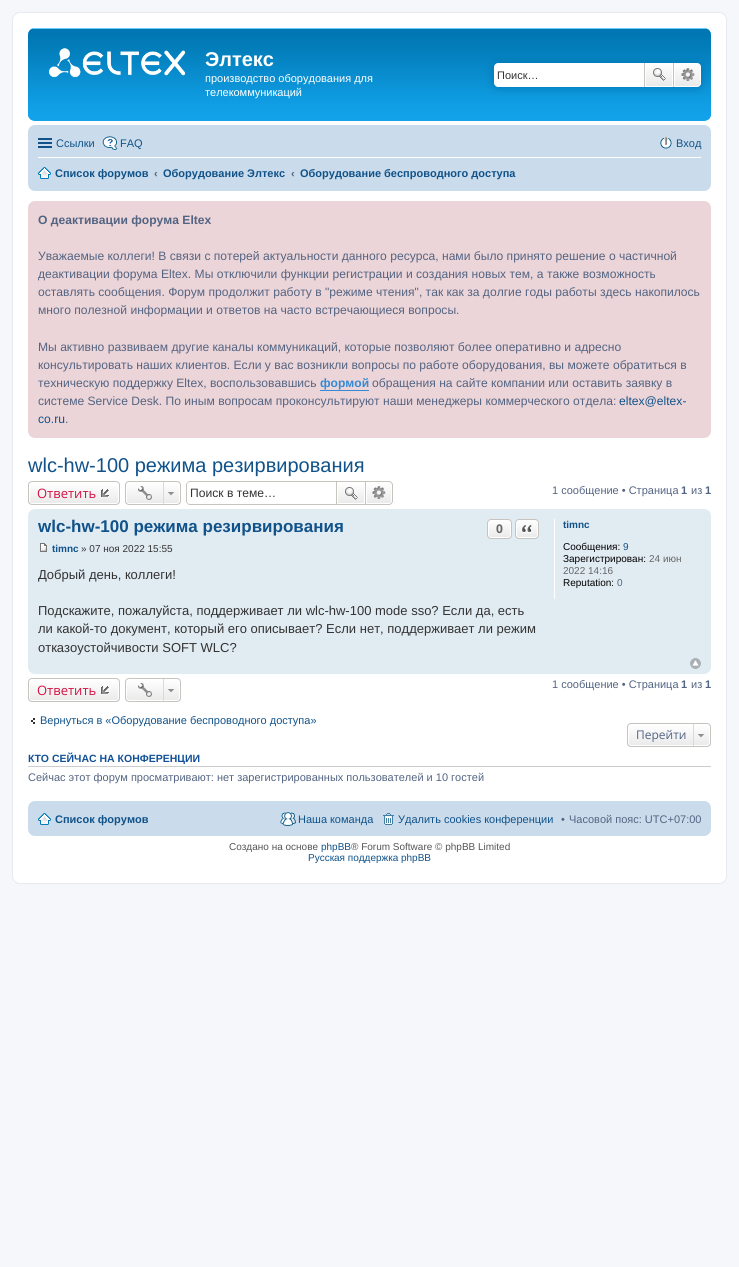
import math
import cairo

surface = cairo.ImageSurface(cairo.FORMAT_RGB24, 739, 1267)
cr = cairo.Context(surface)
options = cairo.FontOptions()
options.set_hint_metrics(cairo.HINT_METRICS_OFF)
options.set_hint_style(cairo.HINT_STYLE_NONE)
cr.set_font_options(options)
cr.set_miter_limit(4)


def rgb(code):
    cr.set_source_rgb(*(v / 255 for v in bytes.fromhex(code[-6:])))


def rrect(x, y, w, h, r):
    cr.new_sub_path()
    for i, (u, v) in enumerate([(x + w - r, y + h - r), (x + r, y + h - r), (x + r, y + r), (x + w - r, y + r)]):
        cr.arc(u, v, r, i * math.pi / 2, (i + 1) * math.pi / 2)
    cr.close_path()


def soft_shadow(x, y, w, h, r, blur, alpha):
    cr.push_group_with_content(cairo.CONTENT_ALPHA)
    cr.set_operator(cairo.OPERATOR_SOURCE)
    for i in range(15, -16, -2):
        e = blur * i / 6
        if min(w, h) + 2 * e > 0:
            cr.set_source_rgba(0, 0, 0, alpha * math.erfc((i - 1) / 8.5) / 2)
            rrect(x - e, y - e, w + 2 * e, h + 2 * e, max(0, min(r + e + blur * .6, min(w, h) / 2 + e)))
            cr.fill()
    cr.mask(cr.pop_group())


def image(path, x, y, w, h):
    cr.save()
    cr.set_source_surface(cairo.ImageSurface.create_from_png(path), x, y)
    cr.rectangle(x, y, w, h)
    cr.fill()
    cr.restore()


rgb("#f5f7fa")
cr.paint()
rgb("#ffffff")
rrect(12.5, 12.5, 714, 871, 7.5)
cr.fill_preserve()
rgb("#e6e9ed")
cr.set_line_width(1)
cr.stroke()
rgb("#12a3eb")
rrect(28, 28, 683, 93, 7)
cr.fill()
image("img/1.png", 28, 28, 683, 92)
image("img/2.png", 49, 48, 137, 29)
rgb("#0075b0")
soft_shadow(494, 63, 207, 24, 4, 5, 1)
rgb("#ffffff")
cr.new_path()
cr.move_to(498, 63)
cr.line_to(644, 63)
cr.line_to(644, 87)
cr.line_to(498, 87)
cr.curve_to(496, 87, 494, 85, 494, 83)
cr.line_to(494, 67)
cr.curve_to(494, 65, 496, 63, 498, 63)
cr.close_path()
cr.fill()
gradient = cairo.LinearGradient(659, 63, 659, 87)
gradient.add_color_stop_rgba(0, 1, 1, 1, 1)
gradient.add_color_stop_rgba(1, 0.914, 0.914, 0.914, 1)
cr.set_source(gradient)
cr.rectangle(646, 64, 26, 22)
cr.fill()
cr.rectangle(645.5, 63.5, 27, 23)
rgb("#ffffff")
cr.stroke()
rgb("#c7c3bf")
cr.rectangle(673, 63, 1, 24)
cr.fill()
cr.rectangle(644, 63, 1, 24)
cr.fill()
image("img/3.png", 653, 68, 13, 13)
gradient = cairo.LinearGradient(688, 63, 688, 87)
gradient.add_color_stop_rgba(0, 1, 1, 1, 1)
gradient.add_color_stop_rgba(1, 0.914, 0.914, 0.914, 1)
cr.set_source(gradient)
cr.new_path()
cr.move_to(674.5, 63.5)
cr.line_to(697, 63.5)
cr.curve_to(699, 63.5, 700.5, 65, 700.5, 67)
cr.line_to(700.5, 83)
cr.curve_to(700.5, 85, 699, 86.5, 697, 86.5)
cr.line_to(674.5, 86.5)
cr.close_path()
cr.fill_preserve()
rgb("#ffffff")
cr.stroke()
image("img/4.png", 681, 68, 14, 13)
rgb("#cadceb")
rrect(28, 125, 683, 66, 7)
cr.fill()
for x, y, w, h, color in [
    (38, 138, 14, 2, "#105289"),
    (38, 142, 14, 2, "#105289"),
    (38, 146, 14, 2, "#105289"),
]:
    rgb(color)
    cr.rectangle(x, y, w, h)
    cr.fill()
image("img/5.png", 102, 136, 16, 14)
image("img/6.png", 660, 137, 12, 12)
rgb("#ffffff")
cr.rectangle(38, 157, 663, 1)
cr.fill()
image("img/7.png", 38, 167, 13, 12)
rgb("#ecd5d8")
rrect(28, 201, 683, 237, 7)
cr.fill()
rgb("#368ad2")
cr.rectangle(320, 390, 49, 1)
cr.fill()
cr.save()
rrect(28, 481, 92, 24, 4)
cr.clip()
gradient = cairo.LinearGradient(74, 482, 74, 504)
gradient.add_color_stop_rgba(0, 1, 1, 1, 1)
gradient.add_color_stop_rgba(1, 0.914, 0.914, 0.914, 1)
cr.set_source(gradient)
cr.rectangle(28, 482, 92, 22)
cr.fill()
cr.restore()
rrect(29.5, 482.5, 89, 21, 2.5)
rgb("#ffffff")
cr.stroke()
rrect(28.5, 481.5, 91, 23, 3.5)
rgb("#c7c3bf")
cr.stroke()
image("img/8.png", 100, 489, 10, 9)
cr.save()
rrect(125, 481, 56, 24, 4)
cr.clip()
gradient = cairo.LinearGradient(153, 482, 153, 504)
gradient.add_color_stop_rgba(0, 1, 1, 1, 1)
gradient.add_color_stop_rgba(1, 0.914, 0.914, 0.914, 1)
cr.set_source(gradient)
cr.rectangle(125, 482, 56, 22)
cr.fill()
cr.restore()
rrect(126.5, 482.5, 53, 21, 2.5)
rgb("#ffffff")
cr.stroke()
rrect(125.5, 481.5, 55, 23, 3.5)
rgb("#c7c3bf")
cr.stroke()
image("img/9.png", 138, 486, 14, 15)
image("img/10.png", 167, 492, 8, 4)
rgb("#dadada")
cr.rectangle(163, 482, 1, 22)
cr.fill()
rgb("#c7c3bf")
cr.set_fill_rule(cairo.FILL_RULE_EVEN_ODD)
cr.new_path()
cr.move_to(190, 481)
cr.line_to(336, 481)
cr.line_to(336, 505)
cr.line_to(190, 505)
cr.curve_to(188, 505, 186, 503, 186, 501)
cr.line_to(186, 485)
cr.curve_to(186, 483, 188, 481, 190, 481)
cr.close_path()
cr.move_to(190, 482)
cr.line_to(336, 482)
cr.line_to(336, 504)
cr.line_to(190, 504)
cr.curve_to(188, 504, 187, 503, 187, 501)
cr.line_to(187, 485)
cr.curve_to(187, 483, 188, 482, 190, 482)
cr.close_path()
cr.fill()
gradient = cairo.LinearGradient(351, 482, 351, 504)
gradient.add_color_stop_rgba(0, 1, 1, 1, 1)
gradient.add_color_stop_rgba(1, 0.914, 0.914, 0.914, 1)
cr.set_source(gradient)
cr.rectangle(338, 485, 26, 18)
cr.fill()
cr.rectangle(336.5, 481.5, 29, 23)
rgb("#c7c3bf")
cr.stroke()
image("img/11.png", 345, 487, 13, 13)
gradient = cairo.LinearGradient(379, 482, 379, 504)
gradient.add_color_stop_rgba(0, 1, 1, 1, 1)
gradient.add_color_stop_rgba(1, 0.914, 0.914, 0.914, 1)
cr.set_source(gradient)
cr.new_path()
cr.move_to(366.5, 482.5)
cr.line_to(389, 482.5)
cr.curve_to(390.5, 482.5, 391.5, 483.5, 391.5, 485)
cr.line_to(391.5, 501)
cr.curve_to(391.5, 502.5, 390.5, 503.5, 389, 503.5)
cr.line_to(366.5, 503.5)
cr.close_path()
cr.fill_preserve()
rgb("#ffffff")
cr.stroke()
rgb("#c7c3bf")
cr.new_path()
cr.move_to(366, 481)
cr.line_to(389, 481)
cr.curve_to(391, 481, 393, 483, 393, 485)
cr.line_to(393, 501)
cr.curve_to(393, 503, 391, 505, 389, 505)
cr.line_to(366, 505)
cr.close_path()
cr.move_to(366, 482)
cr.line_to(389, 482)
cr.curve_to(390.5, 482, 392, 483.5, 392, 485)
cr.line_to(392, 501)
cr.curve_to(392, 502.5, 390.5, 504, 389, 504)
cr.line_to(366, 504)
cr.close_path()
cr.fill()
image("img/12.png", 372, 486, 14, 13)
rgb("#e1ebf2")
rrect(28, 509, 683, 165, 7)
cr.fill()
cr.save()
cr.set_fill_rule(cairo.FILL_RULE_WINDING)
rrect(487, 519, 25, 20, 4)
cr.clip()
gradient = cairo.LinearGradient(500, 520, 500, 538)
gradient.add_color_stop_rgba(0, 1, 1, 1, 1)
gradient.add_color_stop_rgba(1, 0.914, 0.914, 0.914, 1)
cr.set_source(gradient)
cr.rectangle(487, 520, 25, 18)
cr.fill()
cr.restore()
rrect(488.5, 520.5, 22, 17, 2.5)
rgb("#ffffff")
cr.stroke()
rrect(487.5, 519.5, 24, 19, 3.5)
rgb("#c7c3bf")
cr.stroke()
cr.save()
cr.set_fill_rule(cairo.FILL_RULE_WINDING)
rrect(515, 519, 24, 20, 4)
cr.clip()
gradient = cairo.LinearGradient(527, 520, 527, 538)
gradient.add_color_stop_rgba(0, 1, 1, 1, 1)
gradient.add_color_stop_rgba(1, 0.914, 0.914, 0.914, 1)
cr.set_source(gradient)
cr.rectangle(515, 520, 24, 18)
cr.fill()
cr.restore()
rrect(516.5, 520.5, 21, 17, 2.5)
rgb("#ffffff")
cr.stroke()
rrect(515.5, 519.5, 23, 19, 3.5)
rgb("#c7c3bf")
cr.stroke()
image("img/13.png", 521, 525, 11, 8)
image("img/14.png", 40, 543, 7, 9)
rgb("#ffffff")
cr.rectangle(554, 519, 1, 80)
cr.fill()
image("img/15.png", 690, 658, 11, 11)
cr.save()
cr.set_fill_rule(cairo.FILL_RULE_WINDING)
rrect(28, 678, 92, 24, 4)
cr.clip()
gradient = cairo.LinearGradient(74, 679, 74, 701)
gradient.add_color_stop_rgba(0, 1, 1, 1, 1)
gradient.add_color_stop_rgba(1, 0.914, 0.914, 0.914, 1)
cr.set_source(gradient)
cr.rectangle(28, 679, 92, 22)
cr.fill()
cr.restore()
rrect(29.5, 679.5, 89, 21, 2.5)
cr.stroke()
rrect(28.5, 678.5, 91, 23, 3.5)
rgb("#c7c3bf")
cr.stroke()
image("img/8.png", 100, 686, 10, 9)
cr.save()
cr.set_fill_rule(cairo.FILL_RULE_WINDING)
rrect(125, 678, 56, 24, 4)
cr.clip()
gradient = cairo.LinearGradient(153, 679, 153, 701)
gradient.add_color_stop_rgba(0, 1, 1, 1, 1)
gradient.add_color_stop_rgba(1, 0.914, 0.914, 0.914, 1)
cr.set_source(gradient)
cr.rectangle(125, 679, 56, 22)
cr.fill()
cr.restore()
rrect(126.5, 679.5, 53, 21, 2.5)
rgb("#ffffff")
cr.stroke()
rrect(125.5, 678.5, 55, 23, 3.5)
rgb("#c7c3bf")
cr.stroke()
image("img/9.png", 138, 683, 14, 15)
image("img/10.png", 167, 689, 8, 4)
rgb("#dadada")
cr.rectangle(163, 679, 1, 22)
cr.fill()
image("img/16.png", 31, 718, 4, 6)
cr.save()
cr.set_fill_rule(cairo.FILL_RULE_WINDING)
rrect(627, 723, 84, 24, 4)
cr.clip()
gradient = cairo.LinearGradient(669, 724, 669, 746)
gradient.add_color_stop_rgba(0, 1, 1, 1, 1)
gradient.add_color_stop_rgba(1, 0.914, 0.914, 0.914, 1)
cr.set_source(gradient)
cr.rectangle(627, 724, 84, 22)
cr.fill()
cr.restore()
rrect(628.5, 724.5, 81, 21, 2.5)
rgb("#ffffff")
cr.stroke()
rrect(627.5, 723.5, 83, 23, 3.5)
rgb("#c7c3bf")
cr.stroke()
image("img/10.png", 697, 734, 8, 4)
rgb("#dadada")
cr.rectangle(693, 724, 1, 22)
cr.fill()
rgb("#cccccc")
cr.rectangle(28, 766, 683, 1)
cr.fill()
rgb("#cadceb")
rrect(28, 801, 683, 35, 7)
cr.fill()
image("img/7.png", 38, 813, 13, 12)
image("img/17.png", 280, 812, 16, 14)
image("img/18.png", 383, 813, 11, 12)
cr.select_font_face("Liberation Sans", cairo.FONT_SLANT_NORMAL, cairo.FONT_WEIGHT_BOLD)
cr.set_font_size(20)
rgb("#ffffff")
cr.move_to(205, 66)
cr.show_text("Элтекс")
cr.select_font_face("Liberation Sans")
cr.set_font_size(11)
cr.move_to(205, 82)
cr.show_text("производство оборудования для")
cr.move_to(205, 96)
cr.show_text("телекоммуникаций")
rgb("#333333")
cr.move_to(497, 79)
cr.show_text("Поиск…")
rgb("#105289")
for x, y, s in [
    (56, 147, "Ссылки"),
    (120, 147, "FAQ"),
    (676, 147, "Вход"),
]:
    cr.move_to(x, y)
    cr.show_text(s)
cr.select_font_face("Liberation Sans", cairo.FONT_SLANT_NORMAL, cairo.FONT_WEIGHT_BOLD)
cr.move_to(55, 177)
cr.show_text("Список форумов")
rgb("#536482")
cr.move_to(154, 177)
cr.show_text("‹")
rgb("#105289")
cr.move_to(163, 177)
cr.show_text("Оборудование Элтекс")
rgb("#536482")
cr.move_to(291, 177)
cr.show_text("‹")
rgb("#105289")
cr.move_to(300, 177)
cr.show_text("Оборудование беспроводного доступа")
cr.set_font_size(12.1)
rgb("#536482")
cr.move_to(38, 224)
cr.show_text("О деактивации форума Eltex")
cr.select_font_face("Liberation Sans")
for x, y, s in [
    (38, 260, "Уважаемые коллеги! В связи с потерей актуальности данного ресурса, нами было принято решение о частичной"),
    (38, 278, "деактивации форума Eltex. Мы отключили функции регистрации и создания новых тем, а также возможность"),
    (38, 296, "оставлять сообщения. Форум продолжит работу в \"режиме чтения\", так как за долгие годы работы здесь накопилось"),
    (38, 314, "много полезной информации и ответов на часто встречающиеся вопросы."),
    (38, 351, "Мы активно развиваем другие каналы коммуникаций, которые позволяют более оперативно и адресно"),
    (38, 369, "консультировать наших клиентов. Если у вас возникли вопросы по работе оборудования, вы можете обратиться в"),
    (38, 387, "техническую поддержку Eltex, воспользовавшись"),
]:
    cr.move_to(x, y)
    cr.show_text(s)
cr.select_font_face("Liberation Sans", cairo.FONT_SLANT_NORMAL, cairo.FONT_WEIGHT_BOLD)
rgb("#368ad2")
cr.move_to(320, 387)
cr.show_text("формой")
cr.select_font_face("Liberation Sans")
rgb("#536482")
cr.move_to(372, 387)
cr.show_text("обращения на сайте компании или оставить заявку в")
cr.move_to(38, 405)
cr.show_text("системе Service Desk. По иным вопросам проконсультируют наши менеджеры коммерческого отдела:")
rgb("#105289")
cr.move_to(619, 405)
cr.show_text("eltex@eltex-")
cr.move_to(38, 423)
cr.show_text("co.ru")
rgb("#536482")
cr.move_to(65, 423)
cr.show_text(".")
cr.set_font_size(20)
rgb("#105289")
cr.move_to(28, 472)
cr.show_text("wlc-hw-100 режима резирвирования")
cr.select_font_face("Open Sans")
cr.set_font_size(13)
rgb("#d31141")
cr.move_to(37, 498)
cr.show_text("Ответить")
cr.select_font_face("Liberation Sans")
cr.set_font_size(12.1)
rgb("#333333")
cr.move_to(190, 497)
cr.show_text("Поиск в теме…")
cr.set_font_size(11)
rgb("#536482")
cr.move_to(552, 494)
cr.show_text("1 сообщение • Страница")
cr.select_font_face("Liberation Sans", cairo.FONT_SLANT_NORMAL, cairo.FONT_WEIGHT_BOLD)
cr.move_to(681, 494)
cr.show_text("1")
cr.select_font_face("Liberation Sans")
cr.move_to(691, 494)
cr.show_text("из")
cr.select_font_face("Liberation Sans", cairo.FONT_SLANT_NORMAL, cairo.FONT_WEIGHT_BOLD)
cr.move_to(705, 494)
cr.show_text("1")
cr.set_font_size(17)
rgb("#105289")
cr.move_to(38, 532)
cr.show_text("wlc-hw-100 режима резирвирования")
cr.select_font_face("Open Sans", cairo.FONT_SLANT_NORMAL, cairo.FONT_WEIGHT_BOLD)
cr.set_font_size(12)
rgb("#666666")
cr.move_to(496, 533)
cr.show_text("0")
cr.select_font_face("Liberation Sans", cairo.FONT_SLANT_NORMAL, cairo.FONT_WEIGHT_BOLD)
cr.set_font_size(10)
rgb("#105289")
cr.move_to(52, 552)
cr.show_text("timnc")
cr.select_font_face("Liberation Sans")
rgb("#333333")
cr.move_to(81, 552)
cr.show_text("» 07 ноя 2022 15:55")
cr.set_font_size(13)
for x, y, s in [
    (38, 579, "Добрый день, коллеги!"),
    (38, 615, "Подскажите, пожалуйста, поддерживает ли wlc-hw-100 mode sso? Если да, есть"),
    (38, 633, "ли какой-то документ, который его описывает? Если нет, поддерживает ли режим"),
    (38, 652, "отказоустойчивости SOFT WLC?"),
]:
    cr.move_to(x, y)
    cr.show_text(s)
cr.select_font_face("Liberation Sans", cairo.FONT_SLANT_NORMAL, cairo.FONT_WEIGHT_BOLD)
cr.set_font_size(10)
rgb("#105289")
cr.move_to(563, 528)
cr.show_text("timnc")
cr.select_font_face("Liberation Sans")
rgb("#000000")
cr.move_to(563, 550)
cr.show_text("Сообщения:")
rgb("#105289")
cr.move_to(623, 550)
cr.show_text("9")
rgb("#000000")
cr.move_to(563, 562)
cr.show_text("Зарегистрирован:")
rgb("#666666")
cr.move_to(649, 562)
cr.show_text("24 июн")
cr.move_to(563, 574)
cr.show_text("2022 14:16")
rgb("#000000")
cr.move_to(563, 586)
cr.show_text("Reputation:")
rgb("#536482")
cr.move_to(617, 586)
cr.show_text("0")
cr.select_font_face("Open Sans")
cr.set_font_size(13)
rgb("#d31141")
cr.move_to(37, 695)
cr.show_text("Ответить")
cr.select_font_face("Liberation Sans")
cr.set_font_size(11)
rgb("#536482")
cr.move_to(552, 688)
cr.show_text("1 сообщение • Страница")
cr.select_font_face("Liberation Sans", cairo.FONT_SLANT_NORMAL, cairo.FONT_WEIGHT_BOLD)
cr.move_to(681, 688)
cr.show_text("1")
cr.select_font_face("Liberation Sans")
cr.move_to(691, 688)
cr.show_text("из")
cr.select_font_face("Liberation Sans", cairo.FONT_SLANT_NORMAL, cairo.FONT_WEIGHT_BOLD)
cr.move_to(705, 688)
cr.show_text("1")
cr.select_font_face("Liberation Sans")
rgb("#105289")
cr.move_to(40, 724)
cr.show_text("Вернуться в «Оборудование беспроводного доступа»")
cr.select_font_face("Open Sans")
cr.set_font_size(12)
rgb("#536482")
cr.move_to(636, 739)
cr.show_text("Перейти")
cr.select_font_face("Liberation Sans", cairo.FONT_SLANT_NORMAL, cairo.FONT_WEIGHT_BOLD)
cr.set_font_size(10.5)
rgb("#115098")
cr.move_to(28, 762)
cr.show_text("КТО СЕЙЧАС НА КОНФЕРЕНЦИИ")
cr.select_font_face("Liberation Sans")
cr.set_font_size(11)
rgb("#536482")
cr.move_to(28, 781)
cr.show_text("Сейчас этот форум просматривают: нет зарегистрированных пользователей и 10 гостей")
cr.select_font_face("Liberation Sans", cairo.FONT_SLANT_NORMAL, cairo.FONT_WEIGHT_BOLD)
rgb("#105289")
cr.move_to(55, 823)
cr.show_text("Список форумов")
cr.select_font_face("Liberation Sans")
cr.move_to(298, 823)
cr.show_text("Наша команда")
cr.move_to(398, 823)
cr.show_text("Удалить cookies конференции")
rgb("#536482")
cr.move_to(561, 823)
cr.show_text("•")
cr.move_to(569, 823)
cr.show_text("Часовой пояс: UTC+07:00")
cr.set_font_size(10)
rgb("#555555")
cr.move_to(229, 850)
cr.show_text("Создано на основе")
rgb("#105289")
cr.move_to(321, 850)
cr.show_text("phpBB")
rgb("#555555")
cr.move_to(351, 850)
cr.show_text("® Forum Software © phpBB Limited")
rgb("#105289")
cr.move_to(308, 861)
cr.show_text("Русская поддержка phpBB")
surface.write_to_png("page.png")
